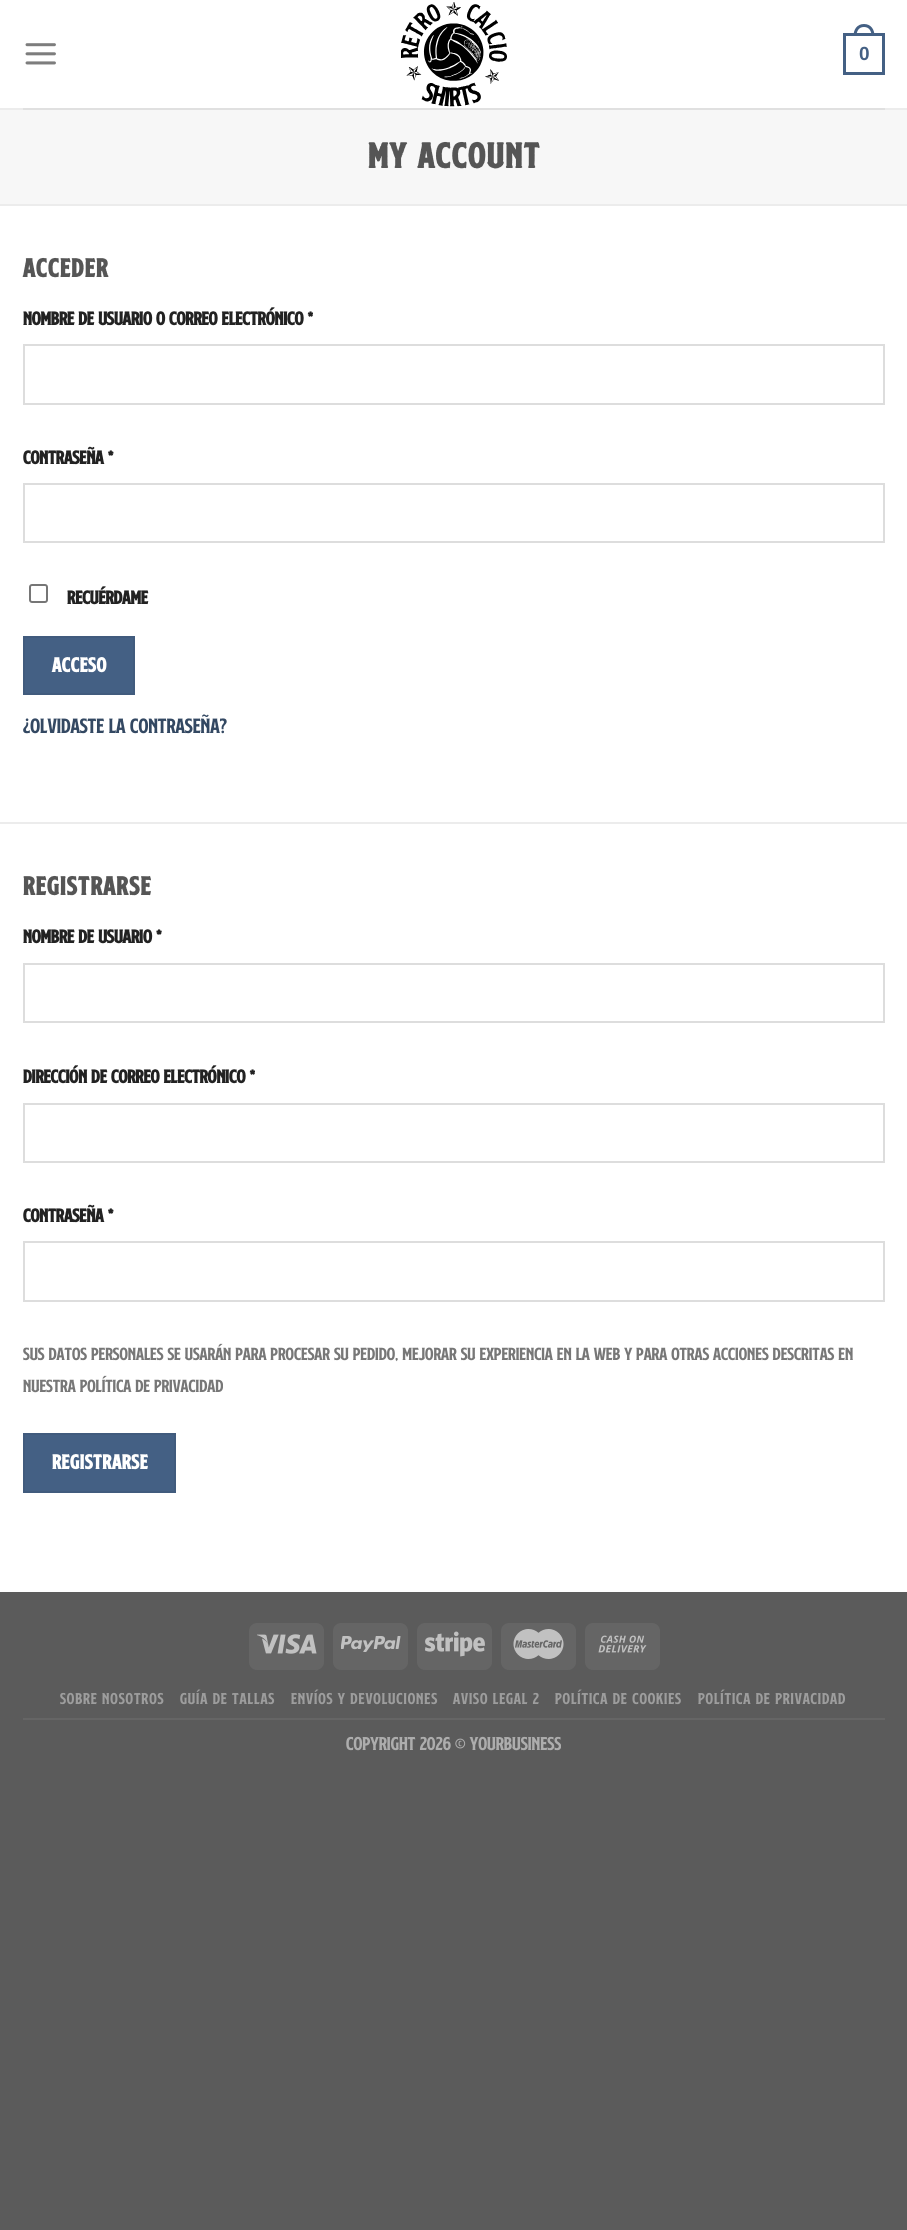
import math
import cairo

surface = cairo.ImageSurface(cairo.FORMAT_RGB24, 907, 2230)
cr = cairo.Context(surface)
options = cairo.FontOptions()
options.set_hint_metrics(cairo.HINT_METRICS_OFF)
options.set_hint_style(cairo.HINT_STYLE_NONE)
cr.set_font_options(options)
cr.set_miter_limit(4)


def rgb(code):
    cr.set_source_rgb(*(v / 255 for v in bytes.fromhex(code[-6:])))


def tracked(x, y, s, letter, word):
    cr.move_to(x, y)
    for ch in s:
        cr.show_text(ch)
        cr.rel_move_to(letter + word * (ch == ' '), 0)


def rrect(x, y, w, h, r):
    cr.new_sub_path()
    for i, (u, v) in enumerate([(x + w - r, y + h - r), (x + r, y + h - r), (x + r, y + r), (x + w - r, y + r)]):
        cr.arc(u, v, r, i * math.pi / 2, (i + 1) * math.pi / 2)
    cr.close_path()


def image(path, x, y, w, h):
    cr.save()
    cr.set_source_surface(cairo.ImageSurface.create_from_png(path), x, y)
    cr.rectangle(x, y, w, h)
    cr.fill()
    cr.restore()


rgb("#5b5b5b")
cr.paint()
rgb("#ffffff")
cr.rectangle(0, 0, 907, 1592)
cr.fill()
image("img/1.png", 25, 43, 31, 22)
image("img/2.png", 401, 2, 106, 105)
cr.rectangle(844.5, 34.5, 39, 39)
rgb("#446084")
cr.set_line_width(3)
cr.stroke()
cr.set_fill_rule(cairo.FILL_RULE_EVEN_ODD)
cr.new_path()
cr.move_to(864, 24)
cr.curve_to(871, 24, 874.5, 29.5, 874.5, 36)
cr.line_to(853.5, 36)
cr.curve_to(853.5, 29.5, 857, 24, 864, 24)
cr.close_path()
cr.move_to(864, 27)
cr.curve_to(869.5, 27, 871.5, 31.5, 871.5, 36)
cr.line_to(856.5, 36)
cr.curve_to(856.5, 31.5, 858.5, 27, 864, 27)
cr.close_path()
cr.fill()
for x, y, w, h, color in [
    (0, 108, 907, 2, "#ececec"),
    (23, 108, 862, 2, "#e0e0e0"),
    (0, 110, 907, 94, "#f7f7f7"),
    (0, 204, 907, 2, "#ececec"),
    (0, 822, 907, 2, "#ececec"),
]:
    rgb(color)
    cr.rectangle(x, y, w, h)
    cr.fill()
cr.rectangle(24, 345, 860, 59)
rgb("#dddddd")
cr.set_line_width(2)
cr.stroke()
cr.rectangle(24, 484, 860, 58)
cr.stroke()
rrect(30, 585, 17, 17, 2)
rgb("#767676")
cr.stroke()
rgb("#446084")
cr.rectangle(24, 637, 110, 57)
cr.fill_preserve()
rgb("#415b7d")
cr.stroke()
cr.rectangle(24, 964, 860, 58)
rgb("#dddddd")
cr.stroke()
cr.rectangle(24, 1104, 860, 58)
cr.stroke()
cr.rectangle(24, 1242, 860, 59)
cr.stroke()
rgb("#446084")
cr.rectangle(24, 1434, 151, 58)
cr.fill_preserve()
rgb("#415b7d")
cr.stroke()
rgb("#656565")
rrect(249, 1623, 75, 47, 8)
cr.fill()
image("img/3.png", 257, 1634, 60, 20)
rrect(333, 1623, 75, 47, 8)
cr.fill()
image("img/4.png", 341, 1636, 60, 16)
rrect(417, 1623, 75, 47, 8)
cr.fill()
image("img/5.png", 425, 1631, 60, 26)
rrect(501, 1623, 75, 47, 8)
cr.fill()
image("img/6.png", 513, 1629, 51, 30)
rrect(585, 1623, 75, 47, 8)
cr.fill()
image("img/7.png", 598, 1635, 49, 18)
cr.rectangle(23, 1718, 862, 2)
cr.fill()
cr.select_font_face("Liberation Sans", cairo.FONT_SLANT_NORMAL, cairo.FONT_WEIGHT_BOLD)
cr.set_font_size(19)
rgb("#446084")
cr.move_to(859, 60)
cr.show_text("0")
cr.select_font_face("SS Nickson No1", cairo.FONT_SLANT_NORMAL, cairo.FONT_WEIGHT_BOLD)
cr.set_font_size(41)
rgb("#555555")
tracked(368, 168, "MY ACCOUNT", 2, 0)
cr.set_font_size(30)
tracked(23, 277, "ACCEDER", 1.5, 0)
cr.set_font_size(21.6)
rgb("#222222")
for x, y, s in [
    (23, 325, "Nombre de usuario o correo electrónico *"),
    (23, 464, "Contraseña *"),
    (67, 604, "Recuérdame"),
]:
    cr.move_to(x, y)
    cr.show_text(s)
cr.set_font_size(23.5)
rgb("#ffffff")
tracked(52, 672, "ACCESO", 0.75, 0)
cr.select_font_face("SS Nickson No1")
cr.set_font_size(24)
rgb("#334862")
cr.move_to(23, 733)
cr.show_text("¿Olvidaste la contraseña?")
cr.select_font_face("SS Nickson No1", cairo.FONT_SLANT_NORMAL, cairo.FONT_WEIGHT_BOLD)
cr.set_font_size(30)
rgb("#555555")
tracked(23, 895, "REGISTRARSE", 1.5, 0)
cr.set_font_size(21.6)
rgb("#222222")
for x, y, s in [
    (23, 943, "Nombre de usuario *"),
    (23, 1083, "Dirección de correo electrónico *"),
    (23, 1222, "Contraseña *"),
]:
    cr.move_to(x, y)
    cr.show_text(s)
cr.select_font_face("SS Nickson No1")
cr.set_font_size(20.4)
rgb("#777777")
cr.move_to(23, 1360)
cr.show_text("Sus datos personales se usarán para procesar su pedido, mejorar su experiencia en la web y para otras acciones descritas en")
cr.move_to(23, 1392)
cr.show_text("nuestra Política de Privacidad")
cr.select_font_face("SS Nickson No1", cairo.FONT_SLANT_NORMAL, cairo.FONT_WEIGHT_BOLD)
cr.set_font_size(23.5)
rgb("#ffffff")
tracked(52, 1469, "REGISTRARSE", 0.75, 0)
cr.select_font_face("SS Nickson No1")
cr.set_font_size(18.25)
rgb("#9d9d9d")
for x, y, s in [
    (60, 1704, "SOBRE NOSOTROS"),
    (180, 1704, "GUÍA DE TALLAS"),
    (291, 1704, "ENVÍOS Y DEVOLUCIONES"),
    (453, 1704, "AVISO LEGAL 2"),
    (555, 1704, "POLÍTICA DE COOKIES"),
    (698, 1704, "POLÍTICA DE PRIVACIDAD"),
]:
    tracked(x, y, s, 0.9, 0)
cr.set_font_size(21.6)
rgb("#adadad")
cr.move_to(346, 1750)
cr.show_text("Copyright 2026 © YourBusiness")
surface.write_to_png("page.png")
